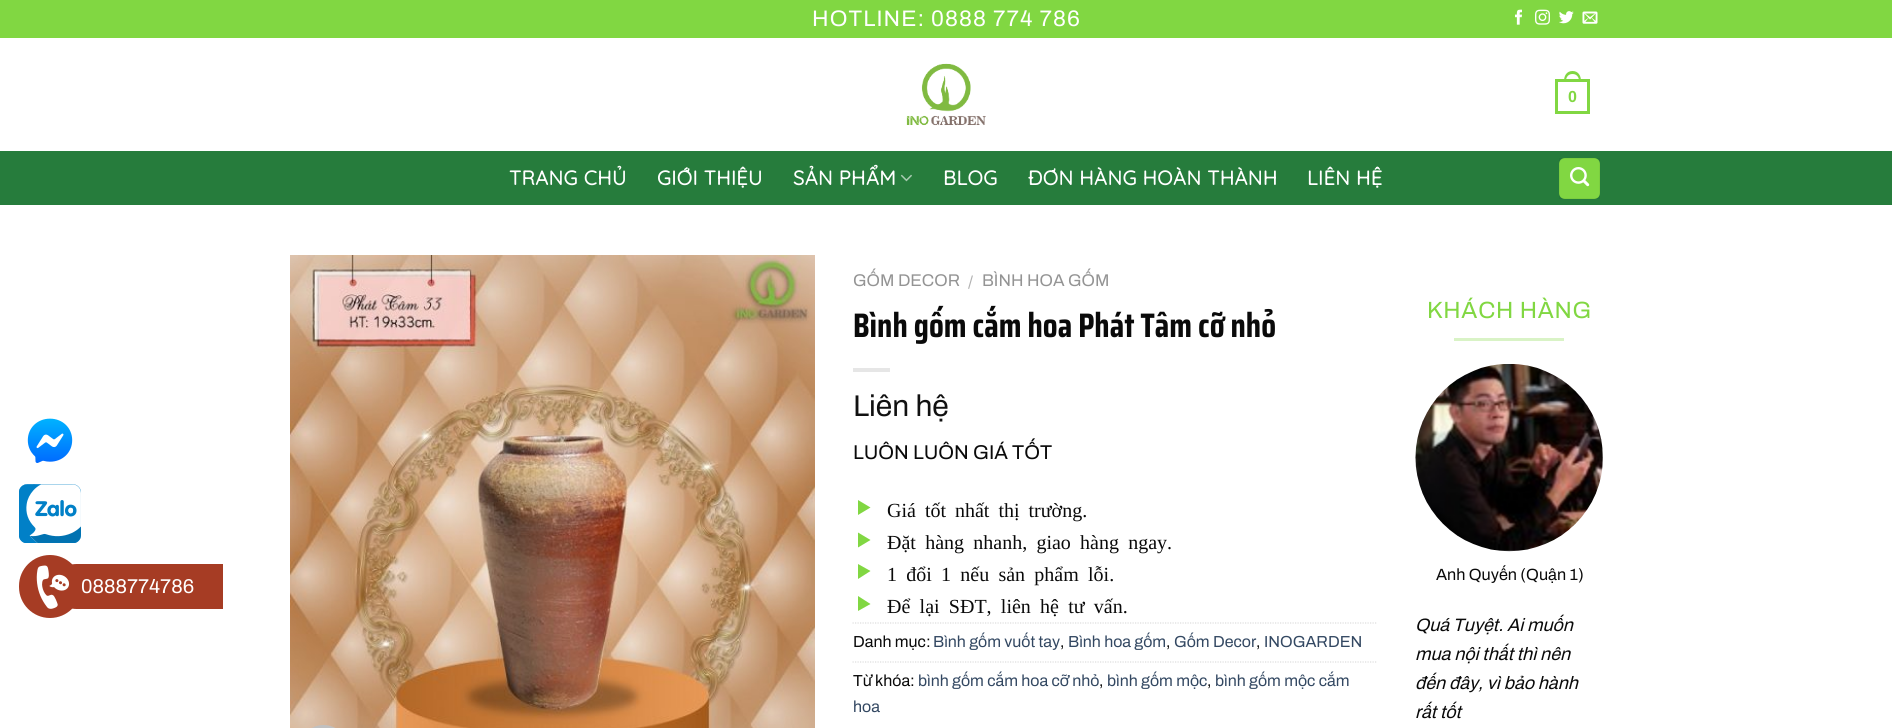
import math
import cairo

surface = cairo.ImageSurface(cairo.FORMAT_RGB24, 1892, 728)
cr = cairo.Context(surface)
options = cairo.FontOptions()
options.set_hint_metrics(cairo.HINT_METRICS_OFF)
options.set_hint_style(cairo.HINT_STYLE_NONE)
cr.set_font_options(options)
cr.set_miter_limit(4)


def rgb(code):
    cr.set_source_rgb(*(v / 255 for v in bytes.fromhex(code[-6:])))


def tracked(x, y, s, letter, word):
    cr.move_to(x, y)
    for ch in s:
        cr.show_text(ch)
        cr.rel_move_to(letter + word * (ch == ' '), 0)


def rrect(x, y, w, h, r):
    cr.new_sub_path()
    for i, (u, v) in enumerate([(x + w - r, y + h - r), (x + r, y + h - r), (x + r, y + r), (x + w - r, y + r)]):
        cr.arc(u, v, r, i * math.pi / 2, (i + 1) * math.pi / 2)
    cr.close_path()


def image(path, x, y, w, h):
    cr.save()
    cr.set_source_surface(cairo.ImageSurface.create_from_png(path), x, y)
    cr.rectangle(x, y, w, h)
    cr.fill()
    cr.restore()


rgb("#ffffff")
cr.paint()
rgb("#81d742")
cr.rectangle(0, 0, 1892, 38)
cr.fill()
image("img/1.png", 1515, 9, 7, 16)
image("img/2.png", 1535, 9, 15, 16)
image("img/3.png", 1559, 11, 15, 13)
image("img/4.png", 1582, 11, 16, 13)
image("img/5.png", 906, 63, 80, 63)
cr.rectangle(1556.5, 80.5, 32, 32)
cr.set_line_width(3)
cr.stroke()
cr.set_fill_rule(cairo.FILL_RULE_EVEN_ODD)
cr.new_path()
cr.move_to(1572.5, 71)
cr.curve_to(1578.5, 71, 1581, 76, 1581, 81)
cr.line_to(1564, 81)
cr.curve_to(1564, 76, 1566.5, 71, 1572.5, 71)
cr.close_path()
cr.move_to(1572.5, 74)
cr.curve_to(1577, 74, 1579, 77.5, 1579, 81)
cr.line_to(1566, 81)
cr.curve_to(1566, 77.5, 1568, 74, 1572.5, 74)
cr.close_path()
cr.fill()
rgb("#267c3c")
cr.rectangle(0, 151, 1892, 54)
cr.fill()
image("img/6.png", 900, 174, 12, 8)
rgb("#81d742")
rrect(1559, 158, 41, 41, 6)
cr.fill()
cr.rectangle(1559.5, 158.5, 40, 40)
cr.set_source_rgba(0, 0, 0, 0.05)
cr.set_line_width(1)
cr.stroke()
image("img/7.png", 1570, 167, 20, 20)
image("img/8.png", 27, 418, 46, 45)
image("img/9.png", 19, 484, 62, 59)
rgb("#a63c24")
cr.new_path()
cr.move_to(76.5, 564)
cr.line_to(223, 564)
cr.line_to(223, 609)
cr.line_to(76.5, 609)
cr.curve_to(64, 609, 54, 599, 54, 586.5)
cr.curve_to(54, 574, 64, 564, 76.5, 564)
cr.close_path()
cr.fill()
rrect(19, 555, 62, 63, 31)
cr.fill()
image("img/10.png", 36, 565, 34, 44)
image("img/11.png", 290, 255, 525, 473)
rrect(300.5, 726.5, 46, 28, 23)
rgb("#c0c0c0")
cr.set_line_width(3)
cr.stroke()
rgb("#e6e6e6")
cr.rectangle(853, 368, 37, 4)
cr.fill()
rgb("#81d742")
cr.set_fill_rule(cairo.FILL_RULE_WINDING)
cr.new_path()
cr.move_to(858, 500)
cr.line_to(870.5, 507.5)
cr.line_to(858, 515)
cr.close_path()
cr.fill()
cr.new_path()
cr.move_to(858, 532.5)
cr.line_to(870.5, 540)
cr.line_to(858, 547.5)
cr.close_path()
cr.fill()
cr.new_path()
cr.move_to(858, 564)
cr.line_to(870.5, 571)
cr.line_to(858, 579)
cr.close_path()
cr.fill()
cr.new_path()
cr.move_to(858, 596)
cr.line_to(870.5, 604)
cr.line_to(858, 611)
cr.close_path()
cr.fill()
cr.new_path()
cr.move_to(852.5, 623)
cr.line_to(1377.5, 623)
rgb("#dddddd")
cr.set_line_width(1.2)
cr.set_dash([1.25, 1.25])
cr.stroke()
cr.new_path()
cr.move_to(852.5, 662)
cr.line_to(1377.5, 662)
cr.stroke()
rgb("#d9f3c6")
cr.rectangle(1454, 338, 110, 3)
cr.fill()
image("img/12.png", 1415, 364, 188, 188)
cr.select_font_face("Archivo SemiBold")
cr.set_font_size(22.5)
rgb("#ffffff")
tracked(812, 26, "HOTLINE: 0888 774 786", 1.1, 0)
cr.select_font_face("Liberation Sans", cairo.FONT_SLANT_NORMAL, cairo.FONT_WEIGHT_BOLD)
cr.set_font_size(16)
rgb("#81d742")
cr.move_to(1568, 102)
cr.show_text("0")
cr.select_font_face("Quicksand", cairo.FONT_SLANT_NORMAL, cairo.FONT_WEIGHT_BOLD)
cr.set_font_size(20)
rgb("#ffffff")
for x, y, s in [
    (509, 185, "TRANG CHỦ"),
    (657, 185, "GIỚI THIỆU"),
    (793, 185, "SẢN PHẨM"),
    (943, 185, "BLOG"),
    (1028, 185, "ĐƠN HÀNG HOÀN THÀNH"),
    (1307, 185, "LIÊN HỆ"),
]:
    tracked(x, y, s, 0.4, 0)
cr.select_font_face("Archivo SemiBold")
cr.move_to(81, 593)
cr.show_text("0888774786")
cr.set_font_size(17)
rgb("#949494")
cr.move_to(853, 286)
cr.show_text("GỐM DECOR")
rgb("#b2b2b2")
cr.move_to(968, 288)
cr.show_text("/")
rgb("#949494")
cr.move_to(982, 286)
cr.show_text("BÌNH HOA GỐM")
cr.select_font_face("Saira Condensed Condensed", cairo.FONT_SLANT_NORMAL, cairo.FONT_WEIGHT_BOLD)
cr.set_font_size(34)
rgb("#0a0a0a")
cr.move_to(853, 337)
cr.show_text("Bình gốm cắm hoa Phát Tâm cỡ nhỏ")
cr.select_font_face("Archivo SemiBold")
cr.set_font_size(30)
rgb("#111111")
cr.move_to(853, 416)
cr.show_text("Liên hệ")
cr.set_font_size(20)
rgb("#0a0a0a")
cr.move_to(853, 459)
cr.show_text("LUÔN LUÔN GIÁ TỐT")
cr.select_font_face("Liberation Serif")
tracked(887, 517, "Giá tốt nhất thị trường.", 0, 4)
for x, y, s in [
    (887, 549, "Đặt hàng nhanh, giao hàng ngay."),
    (887, 581, "1 đổi 1 nếu sản phẩm lỗi."),
    (887, 613, "Để lại SĐT, liên hệ tư vấn."),
]:
    tracked(x, y, s, 0, 4.25)
cr.select_font_face("Archivo SemiBold")
cr.set_font_size(16)
cr.move_to(853, 647)
cr.show_text("Danh mục:")
rgb("#334862")
cr.move_to(933, 647)
cr.show_text("Bình gốm vuốt tay")
rgb("#0a0a0a")
cr.move_to(1060, 647)
cr.show_text(",")
rgb("#334862")
cr.move_to(1068, 647)
cr.show_text("Bình hoa gốm")
rgb("#0a0a0a")
cr.move_to(1166, 647)
cr.show_text(",")
rgb("#334862")
cr.move_to(1174, 647)
cr.show_text("Gốm Decor")
rgb("#0a0a0a")
cr.move_to(1256, 647)
cr.show_text(",")
rgb("#334862")
cr.move_to(1264, 647)
cr.show_text("INOGARDEN")
rgb("#0a0a0a")
cr.move_to(853, 686)
cr.show_text("Từ khóa:")
rgb("#334862")
cr.move_to(918, 686)
cr.show_text("bình gốm cắm hoa cỡ nhỏ")
rgb("#0a0a0a")
cr.move_to(1099, 686)
cr.show_text(",")
rgb("#334862")
cr.move_to(1107, 686)
cr.show_text("bình gốm mộc")
rgb("#0a0a0a")
cr.move_to(1207, 686)
cr.show_text(",")
rgb("#334862")
cr.move_to(1215, 686)
cr.show_text("bình gốm mộc cắm")
cr.move_to(853, 712)
cr.show_text("hoa")
cr.set_font_size(23.5)
rgb("#81d742")
tracked(1427, 318, "KHÁCH HÀNG", 0.75, 0)
cr.set_font_size(16.25)
rgb("#0a0a0a")
cr.move_to(1436, 580)
cr.show_text("Anh Quyến (Quận 1)")
cr.select_font_face("Archivo SemiBold", cairo.FONT_SLANT_ITALIC)
cr.set_font_size(18)
for x, y, s in [
    (1415, 631, "Quá Tuyệt. Ai muốn"),
    (1415, 660, "mua nội thất thì nên"),
    (1415, 689, "đến đây, vì bảo hành"),
    (1415, 718, "rất tốt"),
]:
    cr.move_to(x, y)
    cr.show_text(s)
surface.write_to_png("page.png")
